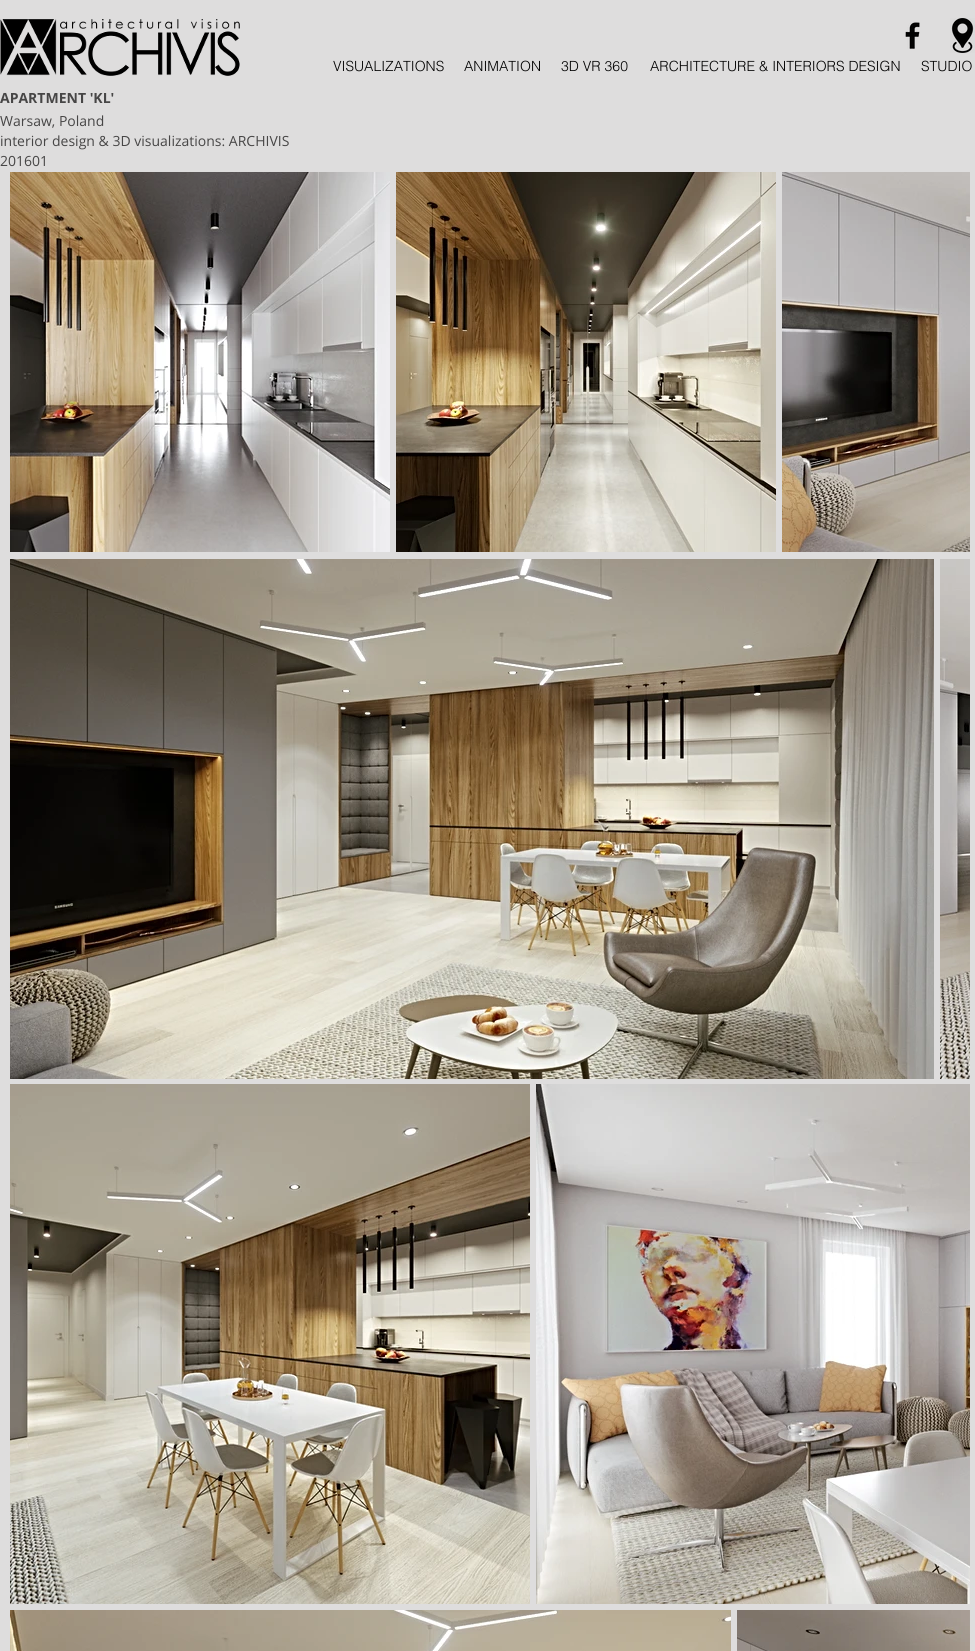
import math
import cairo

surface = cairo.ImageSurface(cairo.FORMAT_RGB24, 975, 1651)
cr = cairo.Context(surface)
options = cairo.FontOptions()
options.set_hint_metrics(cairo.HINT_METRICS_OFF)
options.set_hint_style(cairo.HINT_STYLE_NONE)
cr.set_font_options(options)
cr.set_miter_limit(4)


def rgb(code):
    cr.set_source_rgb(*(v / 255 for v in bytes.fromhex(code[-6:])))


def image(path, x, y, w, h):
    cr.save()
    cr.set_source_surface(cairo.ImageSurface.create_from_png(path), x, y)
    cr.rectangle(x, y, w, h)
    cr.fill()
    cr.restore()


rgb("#dedddd")
cr.paint()
image("img/1.png", 0, 19, 240, 57)
image("img/2.png", 905, 22, 15, 27)
image("img/3.png", 950, 18, 25, 35)
image("img/4.png", 10, 172, 380, 380)
image("img/5.png", 396, 172, 380, 380)
image("img/6.png", 782, 172, 188, 380)
image("img/7.png", 10, 559, 924, 520)
image("img/8.png", 940, 559, 30, 520)
image("img/9.png", 10, 1084, 520, 520)
image("img/10.png", 536, 1084, 434, 520)
image("img/11.png", 10, 1610, 721, 41)
image("img/12.png", 737, 1610, 233, 41)
cr.select_font_face("helvetica Light")
cr.set_font_size(14)
rgb("#000000")
for x, y, s in [
    (333, 71, "VISUALIZATIONS"),
    (464, 71, "ANIMATION"),
    (561, 71, "3D VR 360"),
    (650, 71, "ARCHITECTURE & INTERIORS DESIGN"),
    (921, 71, "STUDIO"),
]:
    cr.move_to(x, y)
    cr.show_text(s)
cr.select_font_face("Open Sans", cairo.FONT_SLANT_NORMAL, cairo.FONT_WEIGHT_BOLD)
rgb("#474646")
cr.move_to(0, 103)
cr.show_text("APARTMENT 'KL'")
cr.select_font_face("Open Sans")
for x, y, s in [
    (0, 126, "Warsaw, Poland"),
    (0, 146, "interior design & 3D visualizations: ARCHIVIS"),
    (0, 166, "201601"),
]:
    cr.move_to(x, y)
    cr.show_text(s)
surface.write_to_png("page.png")
